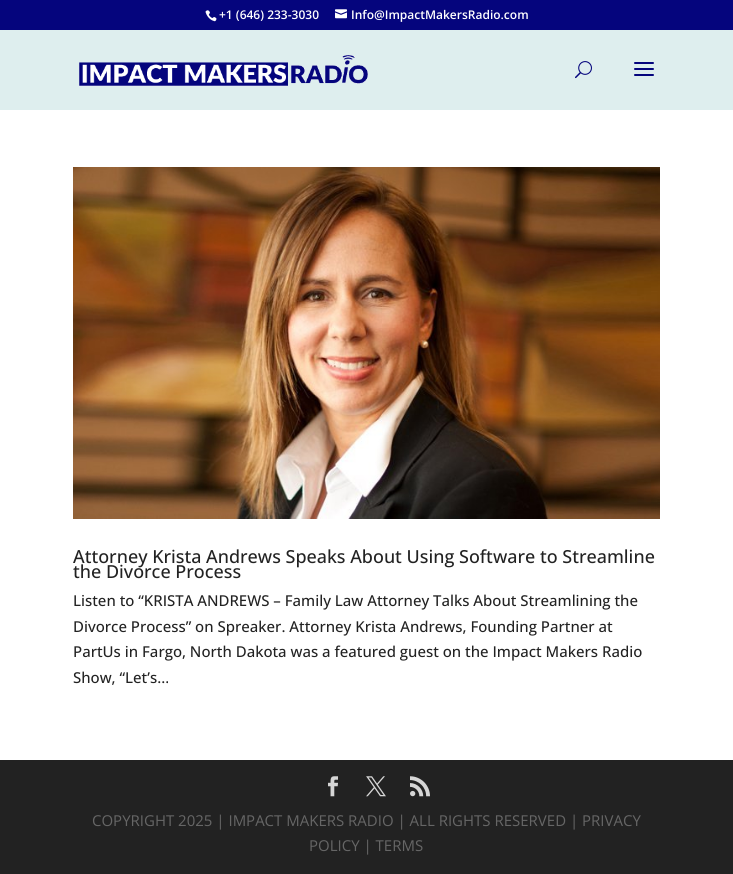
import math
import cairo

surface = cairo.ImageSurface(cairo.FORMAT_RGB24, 733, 874)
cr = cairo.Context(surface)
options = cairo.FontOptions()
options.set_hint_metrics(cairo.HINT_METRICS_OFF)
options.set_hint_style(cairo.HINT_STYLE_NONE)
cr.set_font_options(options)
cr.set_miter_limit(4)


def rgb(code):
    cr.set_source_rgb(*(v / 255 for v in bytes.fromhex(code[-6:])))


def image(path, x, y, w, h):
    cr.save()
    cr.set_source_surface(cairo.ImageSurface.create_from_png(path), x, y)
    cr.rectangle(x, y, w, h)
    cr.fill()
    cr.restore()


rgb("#ffffff")
cr.paint()
rgb("#05057d")
cr.rectangle(0, 0, 733, 30)
cr.fill()
image("img/1.png", 205, 10, 12, 12)
image("img/2.png", 335, 9, 12, 10)
rgb("#deeeee")
cr.rectangle(0, 30, 733, 80)
cr.fill()
image("img/3.png", 79, 55, 289, 32)
image("img/4.png", 575, 61, 17, 18)
image("img/5.png", 634, 62, 20, 14)
image("img/6.png", 73, 167, 587, 352)
rgb("#222222")
cr.rectangle(0, 760, 733, 114)
cr.fill()
image("img/7.png", 328, 776, 10, 21)
image("img/8.png", 366, 776, 20, 21)
image("img/9.png", 410, 776, 20, 21)
cr.select_font_face("Open Sans SemiBold")
cr.set_font_size(12)
rgb("#ffffff")
cr.move_to(219, 19)
cr.show_text("+1 (646) 233-3030")
cr.move_to(351, 19)
cr.show_text("Info@ImpactMakersRadio.com")
cr.select_font_face("Open Sans Medium")
cr.set_font_size(18)
rgb("#222222")
cr.move_to(73, 563)
cr.show_text("Attorney Krista Andrews Speaks About Using Software to Streamline")
cr.move_to(73, 578)
cr.show_text("the Divorce Process")
cr.set_font_size(15)
for x, y, s in [
    (73, 606, "Listen to “KRISTA ANDREWS – Family Law Attorney Talks About Streamlining the"),
    (73, 632, "Divorce Process” on Spreaker. Attorney Krista Andrews, Founding Partner at"),
    (73, 657, "PartUs in Fargo, North Dakota was a featured guest on the Impact Makers Radio"),
    (73, 683, "Show, “Let’s..."),
]:
    cr.move_to(x, y)
    cr.show_text(s)
cr.select_font_face("Open Sans")
rgb("#666666")
cr.move_to(92, 826)
cr.show_text("COPYRIGHT 2025 | IMPACT MAKERS RADIO | ALL RIGHTS RESERVED | PRIVACY")
cr.move_to(309, 851)
cr.show_text("POLICY | TERMS")
surface.write_to_png("page.png")
